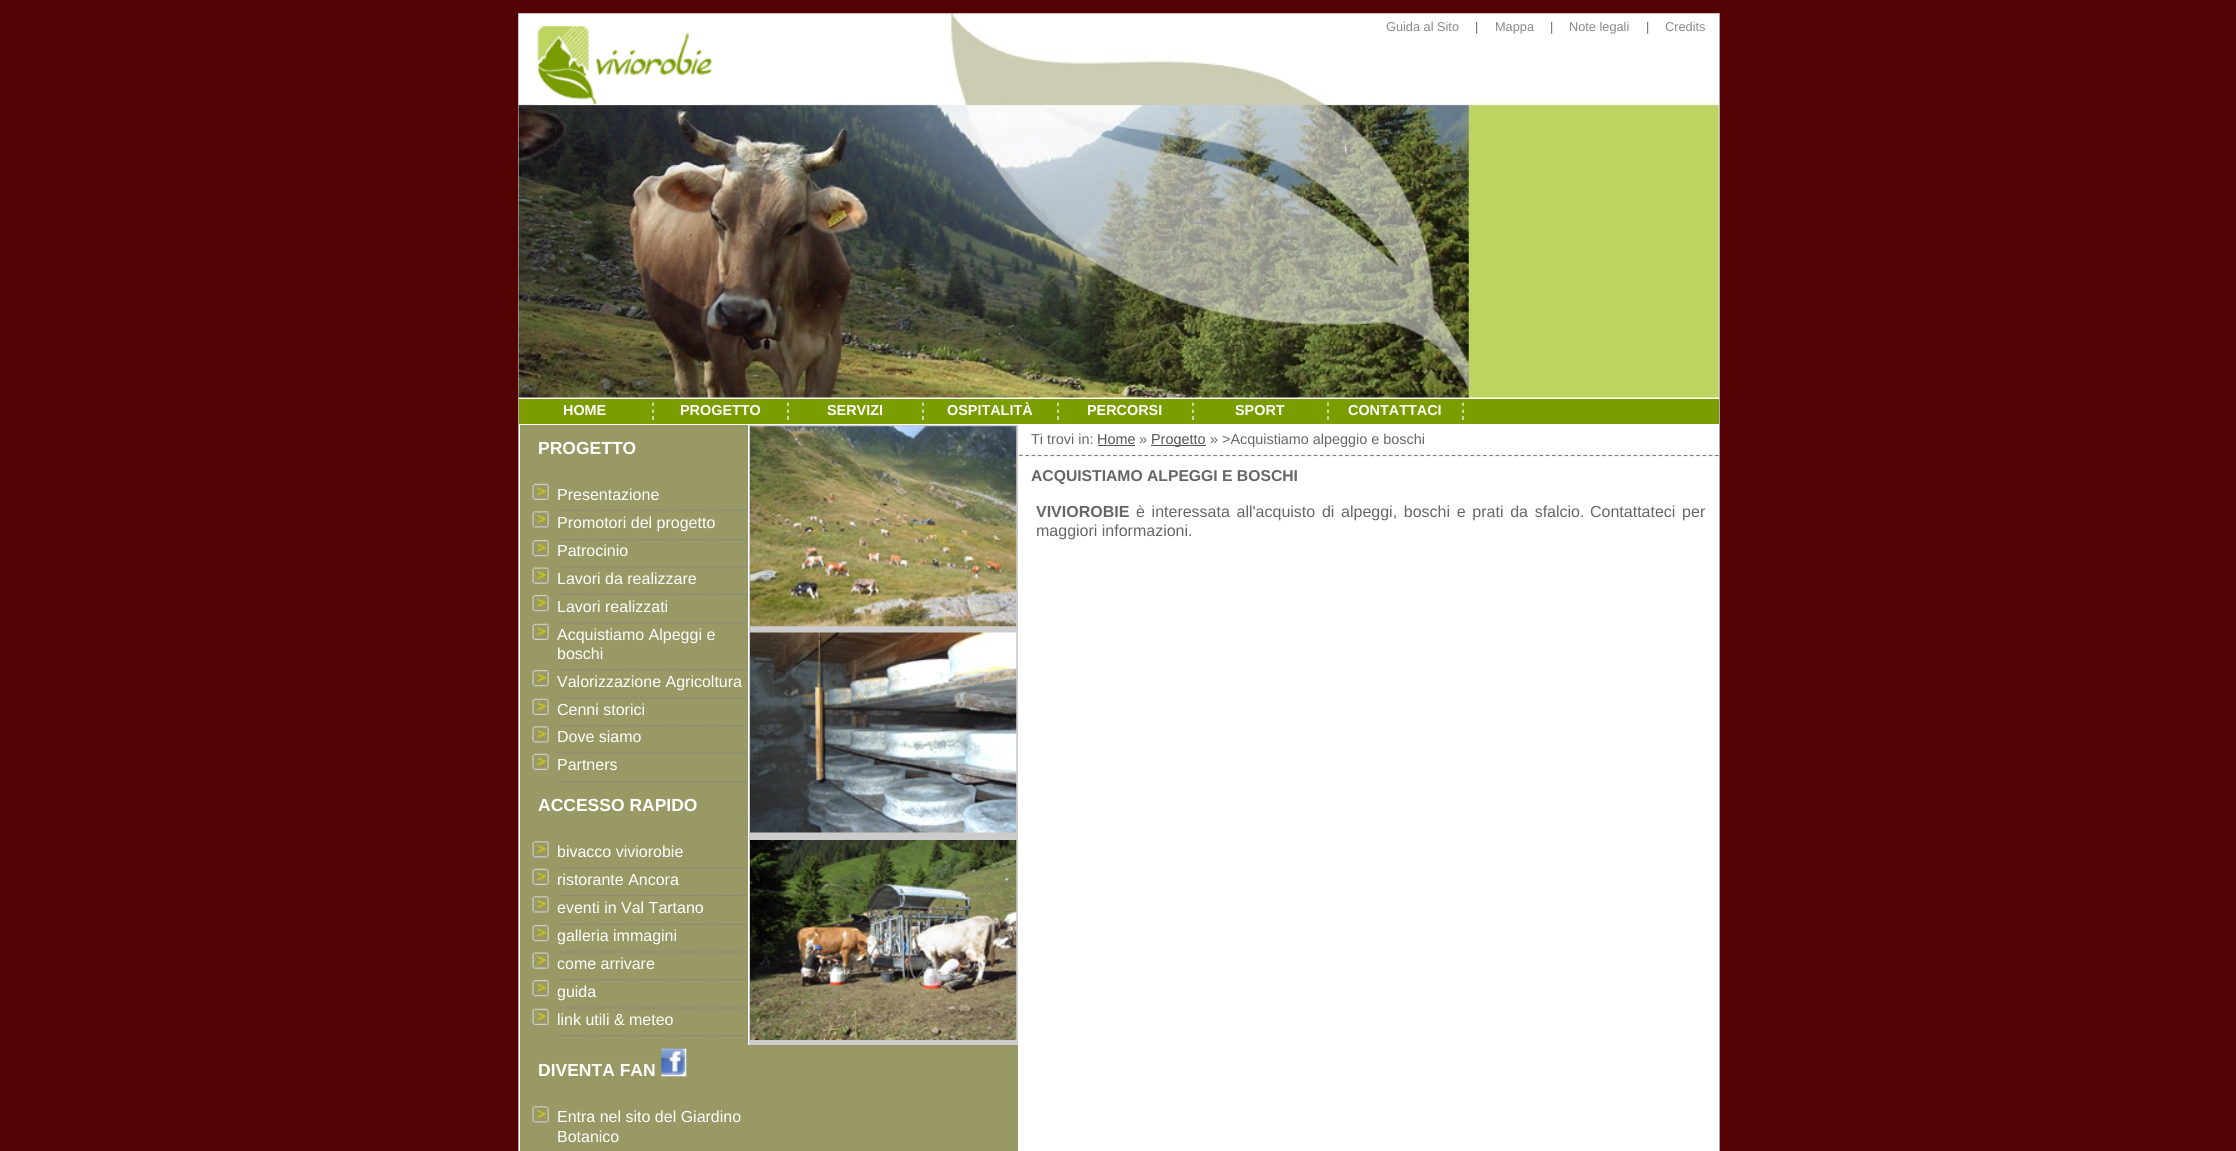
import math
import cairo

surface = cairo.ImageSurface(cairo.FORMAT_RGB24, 2236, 1151)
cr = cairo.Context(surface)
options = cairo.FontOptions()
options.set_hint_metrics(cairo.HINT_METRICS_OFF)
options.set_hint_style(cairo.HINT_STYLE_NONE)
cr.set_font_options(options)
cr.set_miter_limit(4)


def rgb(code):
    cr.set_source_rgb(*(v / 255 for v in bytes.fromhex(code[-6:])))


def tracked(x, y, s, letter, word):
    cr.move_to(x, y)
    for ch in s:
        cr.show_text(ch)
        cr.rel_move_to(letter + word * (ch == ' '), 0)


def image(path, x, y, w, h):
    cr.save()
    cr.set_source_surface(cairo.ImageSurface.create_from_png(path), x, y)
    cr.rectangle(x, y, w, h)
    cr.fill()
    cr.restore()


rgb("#540104")
cr.paint()
rgb("#ffffff")
cr.rectangle(518.5, 13.5, 1201, 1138)
cr.fill_preserve()
rgb("#aaaaaa")
cr.set_line_width(1)
cr.stroke()
image("img/1.png", 518, 13, 1201, 385)
image("img/2.png", 537, 26, 175, 79)
rgb("#7b9d00")
cr.rectangle(519, 399, 1200, 25)
cr.fill()
cr.new_path()
cr.move_to(653, 402.5)
cr.line_to(653, 406)
cr.move_to(653, 409.5)
cr.line_to(653, 413)
cr.move_to(653, 416)
cr.line_to(653, 420)
rgb("#ffffff")
cr.set_line_width(1.2)
cr.stroke()
cr.new_path()
cr.move_to(788, 402.5)
cr.line_to(788, 406)
cr.move_to(788, 409.5)
cr.line_to(788, 413)
cr.move_to(788, 416)
cr.line_to(788, 420)
cr.stroke()
cr.new_path()
cr.move_to(923, 402.5)
cr.line_to(923, 406)
cr.move_to(923, 409.5)
cr.line_to(923, 413)
cr.move_to(923, 416)
cr.line_to(923, 420)
cr.stroke()
cr.new_path()
cr.move_to(1058, 402.5)
cr.line_to(1058, 406)
cr.move_to(1058, 409.5)
cr.line_to(1058, 413)
cr.move_to(1058, 416)
cr.line_to(1058, 420)
cr.stroke()
cr.new_path()
cr.move_to(1193, 402.5)
cr.line_to(1193, 406)
cr.move_to(1193, 409.5)
cr.line_to(1193, 413)
cr.move_to(1193, 416)
cr.line_to(1193, 420)
cr.stroke()
cr.new_path()
cr.move_to(1328, 402.5)
cr.line_to(1328, 406)
cr.move_to(1328, 409.5)
cr.line_to(1328, 413)
cr.move_to(1328, 416)
cr.line_to(1328, 420)
cr.stroke()
cr.new_path()
cr.move_to(1463, 402.5)
cr.line_to(1463, 406)
cr.move_to(1463, 409.5)
cr.line_to(1463, 413)
cr.move_to(1463, 416)
cr.line_to(1463, 420)
cr.stroke()
rgb("#999966")
cr.rectangle(520, 425, 498, 726)
cr.fill()
cr.new_path()
cr.move_to(557.5, 510.5)
cr.line_to(747.5, 510.5)
rgb("#808080")
cr.set_dash([1.25, 1.25])
cr.stroke()
image("img/3.png", 532, 483, 17, 17)
cr.new_path()
cr.move_to(557.5, 539.5)
cr.line_to(747.5, 539.5)
cr.stroke()
image("img/4.png", 532, 511, 17, 17)
cr.new_path()
cr.move_to(557.5, 567)
cr.line_to(747.5, 567)
cr.stroke()
image("img/5.png", 532, 540, 17, 17)
cr.new_path()
cr.move_to(557.5, 594.5)
cr.line_to(747.5, 594.5)
cr.stroke()
image("img/6.png", 532, 567, 17, 17)
cr.new_path()
cr.move_to(557.5, 623)
cr.line_to(747.5, 623)
cr.stroke()
image("img/5.png", 532, 595, 17, 17)
cr.new_path()
cr.move_to(557.5, 669.5)
cr.line_to(747.5, 669.5)
cr.stroke()
image("img/3.png", 532, 623, 17, 17)
cr.new_path()
cr.move_to(557.5, 698)
cr.line_to(747.5, 698)
cr.stroke()
image("img/5.png", 532, 670, 17, 17)
cr.new_path()
cr.move_to(557.5, 725.5)
cr.line_to(747.5, 725.5)
cr.stroke()
image("img/3.png", 532, 698, 17, 17)
cr.new_path()
cr.move_to(557.5, 753)
cr.line_to(747.5, 753)
cr.stroke()
image("img/4.png", 532, 726, 17, 17)
cr.new_path()
cr.move_to(557.5, 782)
cr.line_to(747.5, 782)
cr.stroke()
image("img/3.png", 532, 753, 17, 17)
cr.new_path()
cr.move_to(557.5, 868)
cr.line_to(747.5, 868)
cr.stroke()
image("img/4.png", 532, 841, 17, 17)
cr.new_path()
cr.move_to(557.5, 895.5)
cr.line_to(747.5, 895.5)
cr.stroke()
image("img/3.png", 532, 868, 17, 17)
cr.new_path()
cr.move_to(557.5, 924.5)
cr.line_to(747.5, 924.5)
cr.stroke()
image("img/4.png", 532, 896, 17, 17)
cr.new_path()
cr.move_to(557.5, 952)
cr.line_to(747.5, 952)
cr.stroke()
image("img/5.png", 532, 925, 17, 17)
cr.new_path()
cr.move_to(557.5, 979.5)
cr.line_to(747.5, 979.5)
cr.stroke()
image("img/6.png", 532, 952, 17, 17)
cr.new_path()
cr.move_to(557.5, 1008)
cr.line_to(747.5, 1008)
cr.stroke()
image("img/5.png", 532, 980, 17, 17)
cr.new_path()
cr.move_to(557.5, 1035.5)
cr.line_to(747.5, 1035.5)
cr.stroke()
image("img/3.png", 532, 1008, 17, 17)
image("img/7.png", 661, 1048, 26, 29)
image("img/4.png", 532, 1106, 17, 17)
rgb("#cccccc")
cr.rectangle(749, 425, 269, 620)
cr.fill()
rgb("#ffffff")
cr.rectangle(748, 425, 1, 620)
cr.fill()
image("img/8.png", 750, 426, 267, 201)
image("img/9.png", 750, 632, 267, 201)
image("img/10.png", 750, 840, 267, 200)
cr.new_path()
cr.move_to(1019, 455.5)
cr.line_to(1719, 455.5)
rgb("#808080")
cr.set_dash([3.75, 2.52])
cr.stroke()
rgb("#555555")
cr.rectangle(1098, 445, 37, 1)
cr.fill()
cr.rectangle(1151, 445, 55, 1)
cr.fill()
cr.select_font_face("Liberation Sans")
cr.set_font_size(12.75)
rgb("#888888")
cr.move_to(1386, 31)
cr.show_text("Guida al Sito")
rgb("#666666")
cr.move_to(1475, 31)
cr.show_text("|")
rgb("#888888")
cr.move_to(1495, 31)
cr.show_text("Mappa")
rgb("#666666")
cr.move_to(1550, 31)
cr.show_text("|")
rgb("#888888")
cr.move_to(1569, 31)
cr.show_text("Note legali")
rgb("#666666")
cr.move_to(1646, 31)
cr.show_text("|")
rgb("#888888")
cr.move_to(1665, 31)
cr.show_text("Credits")
cr.select_font_face("Liberation Sans", cairo.FONT_SLANT_NORMAL, cairo.FONT_WEIGHT_BOLD)
cr.set_font_size(14.4)
rgb("#ffffff")
for x, y, s in [
    (563, 415, "HOME"),
    (680, 415, "PROGETTO"),
    (827, 415, "SERVIZI"),
    (947, 415, "OSPITALITÀ"),
    (1087, 415, "PERCORSI"),
    (1235, 415, "SPORT"),
    (1348, 415, "CONTATTACI"),
]:
    cr.move_to(x, y)
    cr.show_text(s)
cr.set_font_size(17.5)
cr.move_to(538, 454)
cr.show_text("PROGETTO")
cr.select_font_face("Liberation Sans")
cr.set_font_size(16)
for x, y, s in [
    (557, 500, "Presentazione"),
    (557, 528, "Promotori del progetto"),
    (557, 556, "Patrocinio"),
    (557, 584, "Lavori da realizzare"),
    (557, 612, "Lavori realizzati"),
    (557, 640, "Acquistiamo Alpeggi e"),
    (557, 659, "boschi"),
    (557, 687, "Valorizzazione Agricoltura"),
    (557, 715, "Cenni storici"),
    (557, 742, "Dove siamo"),
    (557, 770, "Partners"),
]:
    cr.move_to(x, y)
    cr.show_text(s)
cr.select_font_face("Liberation Sans", cairo.FONT_SLANT_NORMAL, cairo.FONT_WEIGHT_BOLD)
cr.set_font_size(17.5)
cr.move_to(538, 811)
cr.show_text("ACCESSO RAPIDO")
cr.select_font_face("Liberation Sans")
cr.set_font_size(16)
for x, y, s in [
    (557, 857, "bivacco viviorobie"),
    (557, 885, "ristorante Ancora"),
    (557, 913, "eventi in Val Tartano"),
    (557, 941, "galleria immagini"),
    (557, 969, "come arrivare"),
    (557, 997, "guida"),
    (557, 1025, "link utili & meteo"),
]:
    cr.move_to(x, y)
    cr.show_text(s)
cr.select_font_face("Liberation Sans", cairo.FONT_SLANT_NORMAL, cairo.FONT_WEIGHT_BOLD)
cr.set_font_size(17.5)
cr.move_to(538, 1076)
cr.show_text("DIVENTA FAN")
cr.select_font_face("Liberation Sans")
cr.set_font_size(16)
cr.move_to(557, 1122)
cr.show_text("Entra nel sito del Giardino")
cr.move_to(557, 1142)
cr.show_text("Botanico")
cr.set_font_size(14.4)
rgb("#666666")
cr.move_to(1031, 444)
cr.show_text("Ti trovi in:")
rgb("#555555")
cr.move_to(1097, 444)
cr.show_text("Home")
rgb("#666666")
cr.move_to(1139, 444)
cr.show_text("»")
rgb("#555555")
cr.move_to(1151, 444)
cr.show_text("Progetto")
rgb("#666666")
cr.move_to(1210, 444)
cr.show_text("» >Acquistiamo alpeggio e boschi")
cr.select_font_face("Liberation Sans", cairo.FONT_SLANT_NORMAL, cairo.FONT_WEIGHT_BOLD)
cr.set_font_size(15.7)
cr.move_to(1031, 481)
cr.show_text("ACQUISTIAMO ALPEGGI E BOSCHI")
cr.set_font_size(16)
cr.move_to(1036, 517)
cr.show_text("VIVIOROBIE")
cr.select_font_face("Liberation Sans")
tracked(1136, 517, "è interessata all'acquisto di alpeggi, boschi e prati da sfalcio.", 0, 2.25)
tracked(1590, 517, "Contattateci per", 0, 2.25)
cr.move_to(1036, 536)
cr.show_text("maggiori informazioni.")
surface.write_to_png("page.png")
